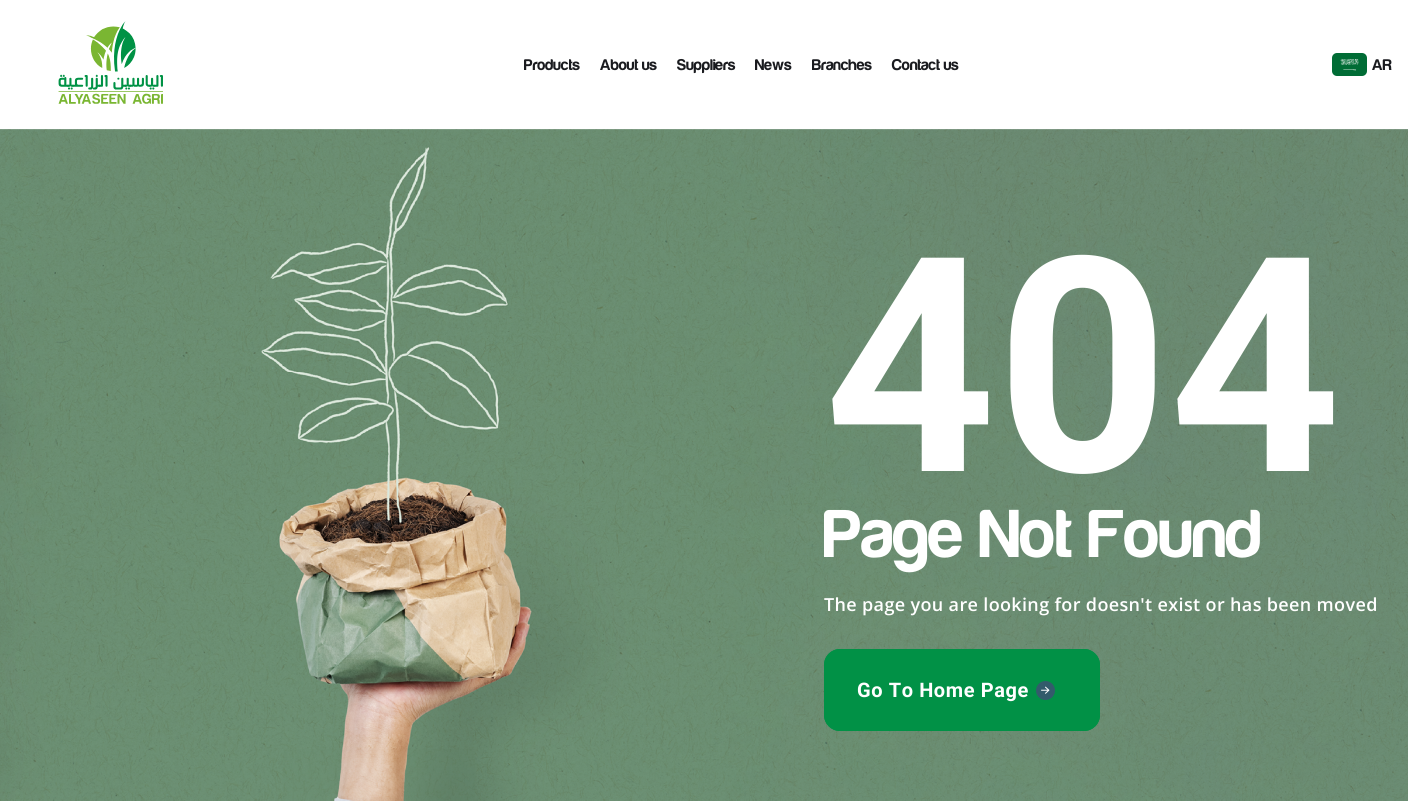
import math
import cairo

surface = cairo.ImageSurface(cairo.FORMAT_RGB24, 1408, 801)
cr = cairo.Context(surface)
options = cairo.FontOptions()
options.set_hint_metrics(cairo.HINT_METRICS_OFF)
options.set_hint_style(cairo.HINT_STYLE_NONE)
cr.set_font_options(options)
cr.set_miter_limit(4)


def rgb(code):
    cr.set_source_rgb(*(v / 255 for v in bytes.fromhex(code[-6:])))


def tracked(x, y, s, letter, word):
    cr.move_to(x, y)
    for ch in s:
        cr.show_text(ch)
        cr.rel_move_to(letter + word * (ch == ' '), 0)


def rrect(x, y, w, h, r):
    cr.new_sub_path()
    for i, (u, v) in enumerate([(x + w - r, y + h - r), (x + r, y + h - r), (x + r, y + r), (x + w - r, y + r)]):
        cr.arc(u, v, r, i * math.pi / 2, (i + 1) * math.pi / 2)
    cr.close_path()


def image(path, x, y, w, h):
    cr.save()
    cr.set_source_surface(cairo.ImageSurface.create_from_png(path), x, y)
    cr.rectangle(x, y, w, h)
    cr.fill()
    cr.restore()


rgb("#ffffff")
cr.paint()
image("img/1.png", 58, 21, 105, 83)
image("img/2.png", 1332, 53, 35, 23)
image("img/3.png", 0, 129, 1408, 672)
rgb("#019146")
rrect(824, 649, 276, 82, 16)
cr.fill()
image("img/4.png", 1036, 681, 19, 19)
rrect(824.5, 649.5, 275, 81, 15.5)
cr.set_line_width(1)
cr.stroke()
cr.select_font_face("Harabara", cairo.FONT_SLANT_NORMAL, cairo.FONT_WEIGHT_BOLD)
cr.set_font_size(16)
rgb("#1a1b1f")
for x, y, s in [
    (524, 70, "Products"),
    (600, 70, "About us"),
    (677, 70, "Suppliers"),
    (755, 70, "News"),
    (812, 70, "Branches"),
    (892, 70, "Contact us"),
    (1372, 70, "AR"),
]:
    cr.move_to(x, y)
    cr.show_text(s)
cr.select_font_face("Roboto", cairo.FONT_SLANT_NORMAL, cairo.FONT_WEIGHT_BOLD)
cr.set_font_size(300)
rgb("#ffffff")
tracked(824, 471, "404", 0.35, 0)
cr.select_font_face("Harabara", cairo.FONT_SLANT_NORMAL, cairo.FONT_WEIGHT_BOLD)
cr.set_font_size(70)
tracked(824, 557, "Page Not Found", 0.35, 0)
cr.select_font_face("Open Sans SemiBold")
cr.set_font_size(18)
tracked(824, 611, "The page you are looking for doesn't exist or has been moved", 0.35, 0)
cr.select_font_face("Roboto", cairo.FONT_SLANT_NORMAL, cairo.FONT_WEIGHT_BOLD)
cr.set_font_size(20)
tracked(857, 697, "Go To Home Page", 0.6, 0)
surface.write_to_png("page.png")
